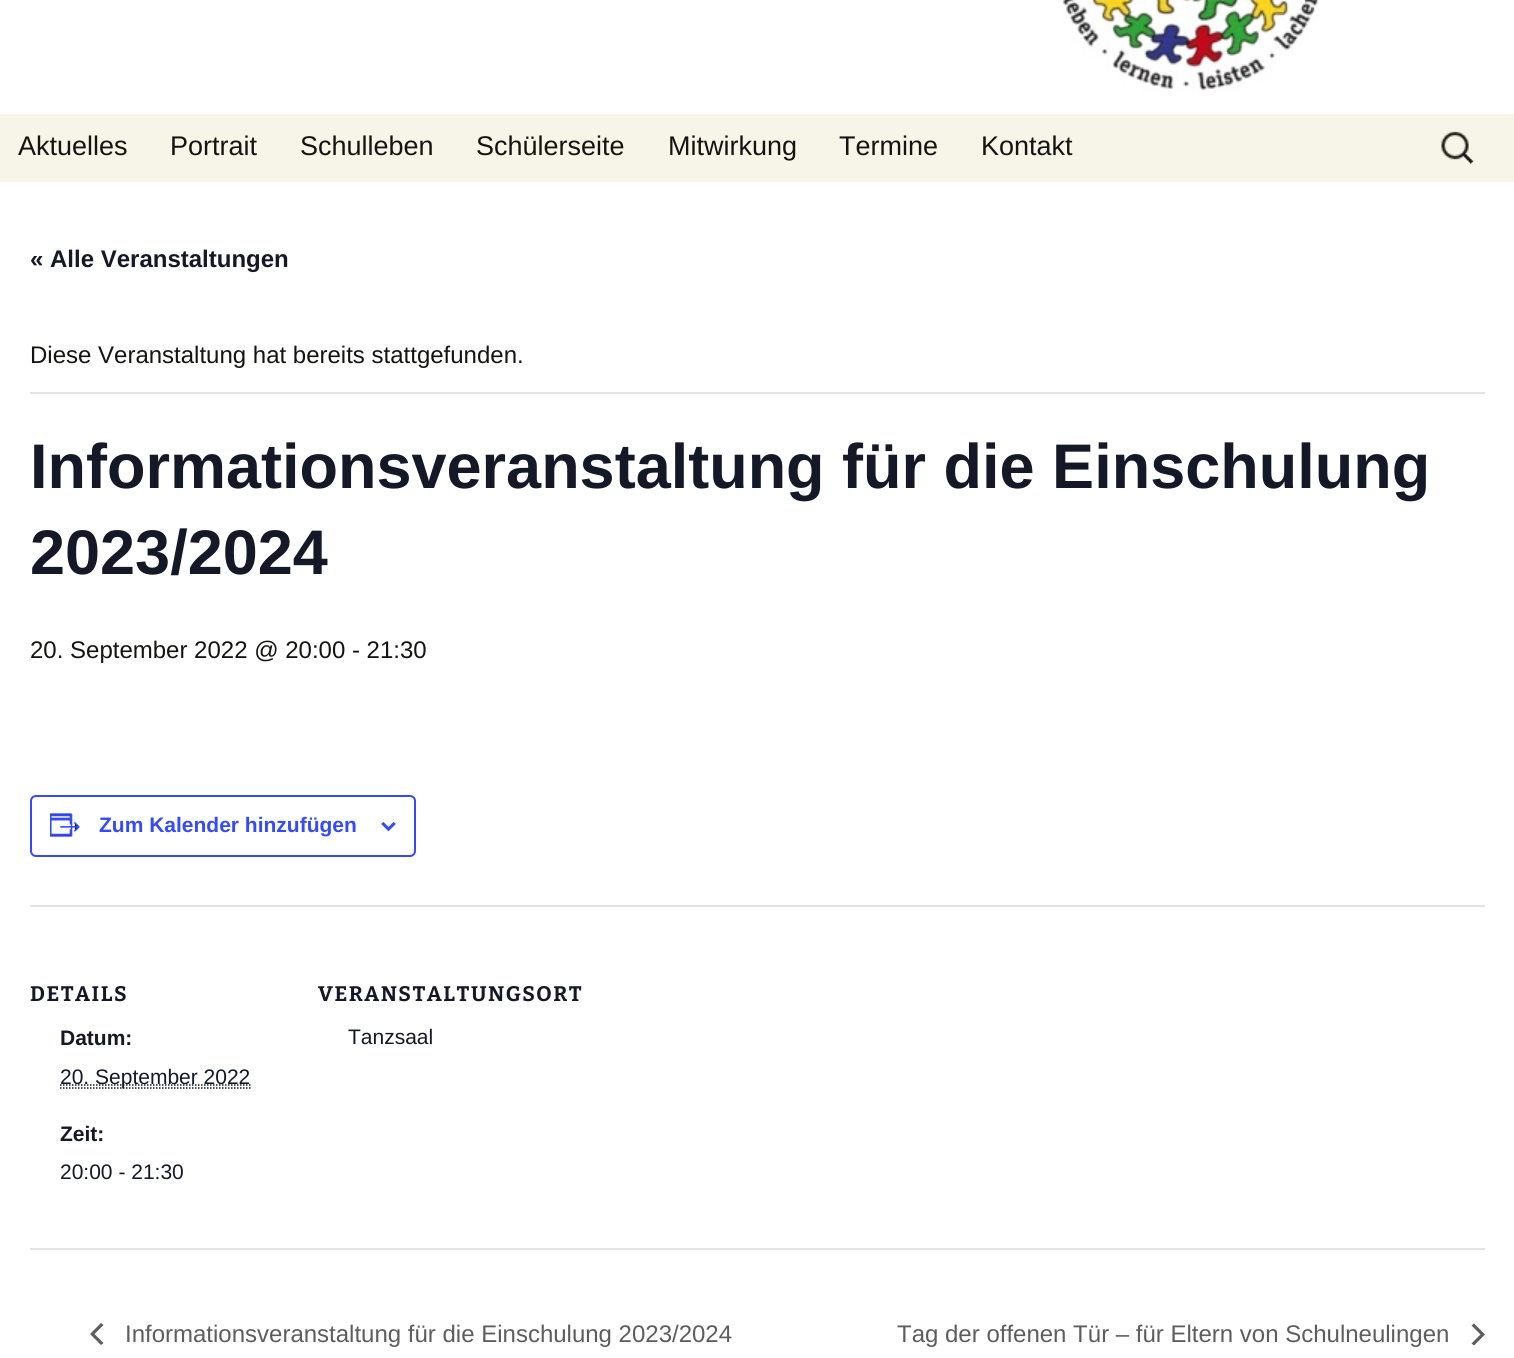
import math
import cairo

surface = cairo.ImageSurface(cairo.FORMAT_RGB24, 1514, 1358)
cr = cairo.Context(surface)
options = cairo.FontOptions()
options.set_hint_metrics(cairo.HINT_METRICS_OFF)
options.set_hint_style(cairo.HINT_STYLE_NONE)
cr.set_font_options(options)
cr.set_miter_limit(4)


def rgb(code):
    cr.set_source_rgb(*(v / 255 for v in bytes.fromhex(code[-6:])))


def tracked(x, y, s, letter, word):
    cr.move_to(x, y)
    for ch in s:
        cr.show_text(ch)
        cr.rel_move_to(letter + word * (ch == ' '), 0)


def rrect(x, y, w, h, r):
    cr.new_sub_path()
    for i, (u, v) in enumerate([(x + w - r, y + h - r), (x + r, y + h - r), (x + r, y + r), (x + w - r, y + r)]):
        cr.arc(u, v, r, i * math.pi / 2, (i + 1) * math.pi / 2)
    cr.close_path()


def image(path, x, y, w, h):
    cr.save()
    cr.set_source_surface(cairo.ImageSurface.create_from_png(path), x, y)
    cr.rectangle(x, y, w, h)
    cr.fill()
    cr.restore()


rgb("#ffffff")
cr.paint()
image("img/1.png", 1061, 0, 258, 91)
rgb("#f7f5e7")
cr.rectangle(0, 114, 1514, 68)
cr.fill()
image("img/2.png", 1441, 131, 33, 33)
rgb("#e4e4e4")
cr.rectangle(30, 392, 1455, 2)
cr.fill()
rrect(31, 796, 384, 60, 5)
rgb("#334aff")
cr.stroke()
image("img/3.png", 50, 813, 30, 24)
image("img/4.png", 381, 822, 15, 9)
rgb("#e4e4e4")
cr.rectangle(30, 905, 1455, 2)
cr.fill()
cr.new_path()
cr.move_to(60, 1088)
cr.line_to(250.5, 1088)
rgb("#141827")
cr.set_line_width(1.5)
cr.set_dash([1.5, 1.5])
cr.stroke()
cr.new_path()
cr.move_to(60, 1085)
cr.line_to(250.5, 1085)
cr.stroke()
rgb("#e4e4e4")
cr.rectangle(30, 1248, 1455, 2)
cr.fill()
rgb("#5d5d5d")
cr.new_path()
cr.move_to(103.5, 1343)
cr.line_to(101, 1345)
cr.line_to(90, 1334)
cr.line_to(101, 1323)
cr.line_to(103.5, 1325)
cr.line_to(94.5, 1334)
cr.close_path()
cr.fill()
cr.new_path()
cr.move_to(1471.5, 1325.5)
cr.line_to(1474, 1323.5)
cr.line_to(1485, 1334.5)
cr.line_to(1474, 1345.5)
cr.line_to(1471.5, 1343.5)
cr.line_to(1480.5, 1334.5)
cr.close_path()
cr.fill()
cr.select_font_face("Liberation Sans")
cr.set_font_size(27)
rgb("#141412")
for x, y, s in [
    (18, 155, "Aktuelles"),
    (170, 155, "Portrait"),
    (300, 155, "Schulleben"),
    (476, 155, "Schülerseite"),
    (668, 155, "Mitwirkung"),
    (839, 155, "Termine"),
    (981, 155, "Kontakt"),
]:
    cr.move_to(x, y)
    cr.show_text(s)
cr.select_font_face("Liberation Sans", cairo.FONT_SLANT_NORMAL, cairo.FONT_WEIGHT_BOLD)
cr.set_font_size(24)
rgb("#141827")
cr.move_to(30, 267)
cr.show_text("« Alle Veranstaltungen")
cr.select_font_face("Liberation Sans")
rgb("#141412")
cr.move_to(30, 363)
cr.show_text("Diese Veranstaltung hat bereits stattgefunden.")
cr.select_font_face("Liberation Sans", cairo.FONT_SLANT_NORMAL, cairo.FONT_WEIGHT_BOLD)
cr.set_font_size(63)
rgb("#141827")
cr.move_to(30, 488)
cr.show_text("Informationsveranstaltung für die Einschulung")
cr.move_to(30, 574)
cr.show_text("2023/2024")
cr.select_font_face("Liberation Sans")
cr.set_font_size(24)
rgb("#141412")
cr.move_to(30, 658)
cr.show_text("20. September 2022 @ 20:00 - 21:30")
cr.select_font_face("Liberation Sans", cairo.FONT_SLANT_NORMAL, cairo.FONT_WEIGHT_BOLD)
cr.set_font_size(21)
rgb("#334aff")
cr.move_to(99, 832)
cr.show_text("Zum Kalender hinzufügen")
cr.select_font_face("Bitter Thin")
rgb("#141827")
tracked(30, 1001, "DETAILS", 1.5, 0)
cr.select_font_face("Liberation Sans", cairo.FONT_SLANT_NORMAL, cairo.FONT_WEIGHT_BOLD)
cr.move_to(60, 1045)
cr.show_text("Datum:")
cr.select_font_face("Liberation Sans")
cr.move_to(60, 1084)
cr.show_text("20. September 2022")
cr.select_font_face("Liberation Sans", cairo.FONT_SLANT_NORMAL, cairo.FONT_WEIGHT_BOLD)
cr.move_to(60, 1141)
cr.show_text("Zeit:")
cr.select_font_face("Liberation Sans")
cr.move_to(60, 1179)
cr.show_text("20:00 - 21:30")
cr.select_font_face("Bitter Thin")
tracked(318, 1001, "VERANSTALTUNGSORT", 1.5, 0)
cr.select_font_face("Liberation Sans")
cr.move_to(348, 1044)
cr.show_text("Tanzsaal")
cr.set_font_size(24)
rgb("#5d5d5d")
cr.move_to(125, 1342)
cr.show_text("Informationsveranstaltung für die Einschulung 2023/2024")
cr.move_to(897, 1342)
cr.show_text("Tag der offenen Tür – für Eltern von Schulneulingen")
surface.write_to_png("page.png")
